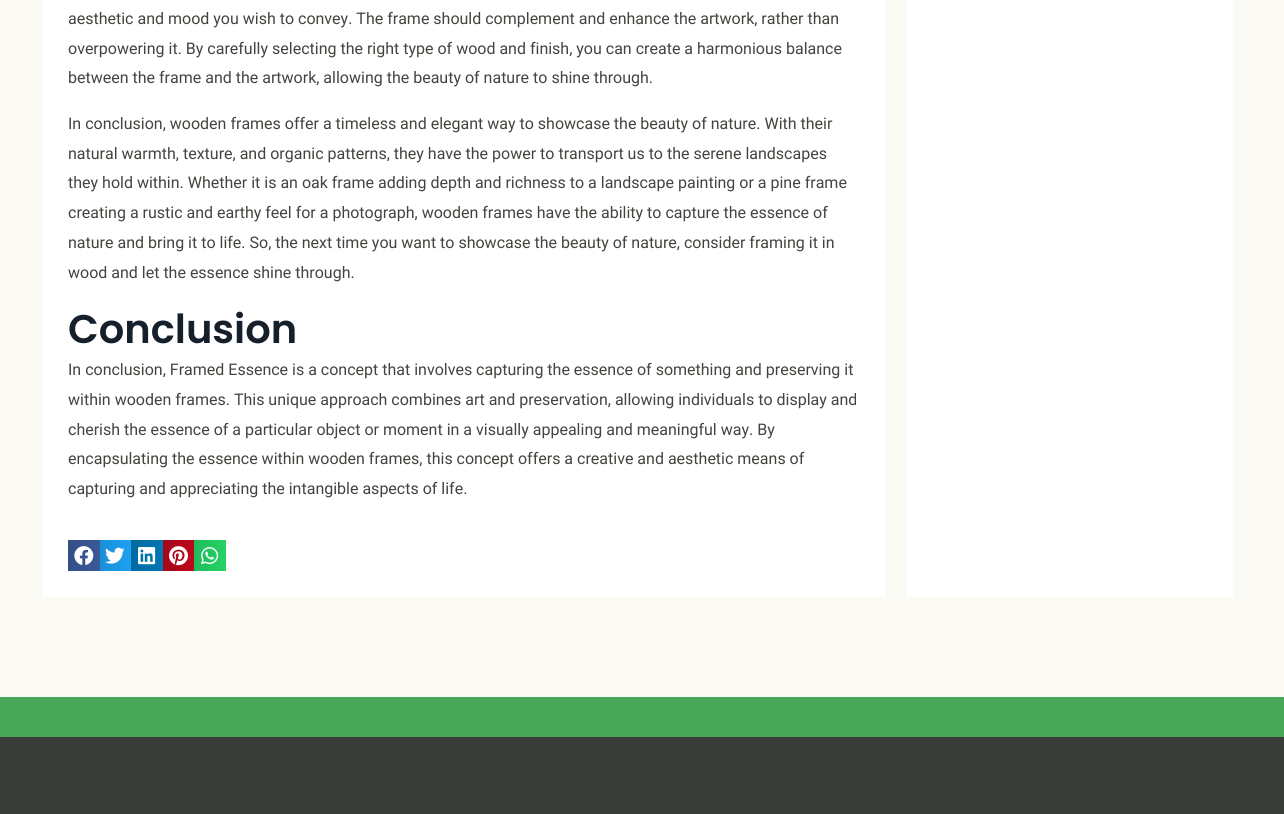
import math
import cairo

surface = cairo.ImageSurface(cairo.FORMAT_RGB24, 1284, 814)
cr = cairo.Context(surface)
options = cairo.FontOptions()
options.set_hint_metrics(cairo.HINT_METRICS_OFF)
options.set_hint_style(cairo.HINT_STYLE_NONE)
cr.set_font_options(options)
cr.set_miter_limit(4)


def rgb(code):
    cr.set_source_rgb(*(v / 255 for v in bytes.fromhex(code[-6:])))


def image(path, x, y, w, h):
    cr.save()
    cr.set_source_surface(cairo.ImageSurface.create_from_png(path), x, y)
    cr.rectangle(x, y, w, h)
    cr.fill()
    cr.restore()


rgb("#faf9f4")
cr.paint()
rgb("#ffffff")
cr.rectangle(42, 0, 844, 597)
cr.fill()
gradient = cairo.LinearGradient(68, 556, 100, 556)
gradient.add_color_stop_rgba(0, 0.204, 0.306, 0.525, 1)
gradient.add_color_stop_rgba(1, 0.231, 0.349, 0.596, 1)
cr.set_source(gradient)
cr.rectangle(68, 540, 32, 31)
cr.fill()
image("img/1.png", 74, 546, 20, 19)
gradient = cairo.LinearGradient(100, 556, 131, 556)
gradient.add_color_stop_rgba(0, 0.102, 0.557, 0.835, 1)
gradient.add_color_stop_rgba(1, 0.114, 0.631, 0.949, 1)
cr.set_source(gradient)
cr.rectangle(100, 540, 31, 31)
cr.fill()
image("img/2.png", 105, 547, 20, 17)
gradient = cairo.LinearGradient(131, 556, 163, 556)
gradient.add_color_stop_rgba(0, 0, 0.412, 0.624, 1)
gradient.add_color_stop_rgba(1, 0, 0.467, 0.71, 1)
cr.set_source(gradient)
cr.rectangle(131, 540, 32, 31)
cr.fill()
image("img/3.png", 138, 547, 18, 18)
gradient = cairo.LinearGradient(163, 556, 194, 556)
gradient.add_color_stop_rgba(0, 0.651, 0.027, 0.098, 1)
gradient.add_color_stop_rgba(1, 0.741, 0.031, 0.11, 1)
cr.set_source(gradient)
cr.rectangle(163, 540, 31, 31)
cr.fill()
image("img/4.png", 169, 546, 19, 20)
gradient = cairo.LinearGradient(194, 556, 226, 556)
gradient.add_color_stop_rgba(0, 0.129, 0.729, 0.353, 1)
gradient.add_color_stop_rgba(1, 0.145, 0.827, 0.4, 1)
cr.set_source(gradient)
cr.rectangle(194, 540, 32, 31)
cr.fill()
image("img/5.png", 201, 547, 18, 18)
for x, y, w, h, color in [
    (906, 0, 327, 597, "#ffffff"),
    (0, 697, 1284, 40, "#49a75a"),
    (0, 737, 1284, 77, "#393c39"),
]:
    rgb(color)
    cr.rectangle(x, y, w, h)
    cr.fill()
cr.select_font_face("Roboto")
cr.set_font_size(16)
rgb("#41453e")
for x, y, s in [
    (68, 24, "aesthetic and mood you wish to convey. The frame should complement and enhance the artwork, rather than"),
    (68, 54, "overpowering it. By carefully selecting the right type of wood and finish, you can create a harmonious balance"),
    (68, 83, "between the frame and the artwork, allowing the beauty of nature to shine through."),
    (68, 129, "In conclusion, wooden frames offer a timeless and elegant way to showcase the beauty of nature. With their"),
    (68, 159, "natural warmth, texture, and organic patterns, they have the power to transport us to the serene landscapes"),
    (68, 188, "they hold within. Whether it is an oak frame adding depth and richness to a landscape painting or a pine frame"),
    (68, 218, "creating a rustic and earthy feel for a photograph, wooden frames have the ability to capture the essence of"),
    (68, 248, "nature and bring it to life. So, the next time you want to showcase the beauty of nature, consider framing it in"),
    (68, 278, "wood and let the essence shine through."),
]:
    cr.move_to(x, y)
    cr.show_text(s)
cr.select_font_face("Poppins SemiBold")
cr.set_font_size(40)
rgb("#16202b")
cr.move_to(68, 343)
cr.show_text("Conclusion")
cr.select_font_face("Roboto")
cr.set_font_size(16)
rgb("#41453e")
for x, y, s in [
    (68, 375, "In conclusion, Framed Essence is a concept that involves capturing the essence of something and preserving it"),
    (68, 405, "within wooden frames. This unique approach combines art and preservation, allowing individuals to display and"),
    (68, 435, "cherish the essence of a particular object or moment in a visually appealing and meaningful way. By"),
    (68, 464, "encapsulating the essence within wooden frames, this concept offers a creative and aesthetic means of"),
    (68, 494, "capturing and appreciating the intangible aspects of life."),
]:
    cr.move_to(x, y)
    cr.show_text(s)
surface.write_to_png("page.png")
